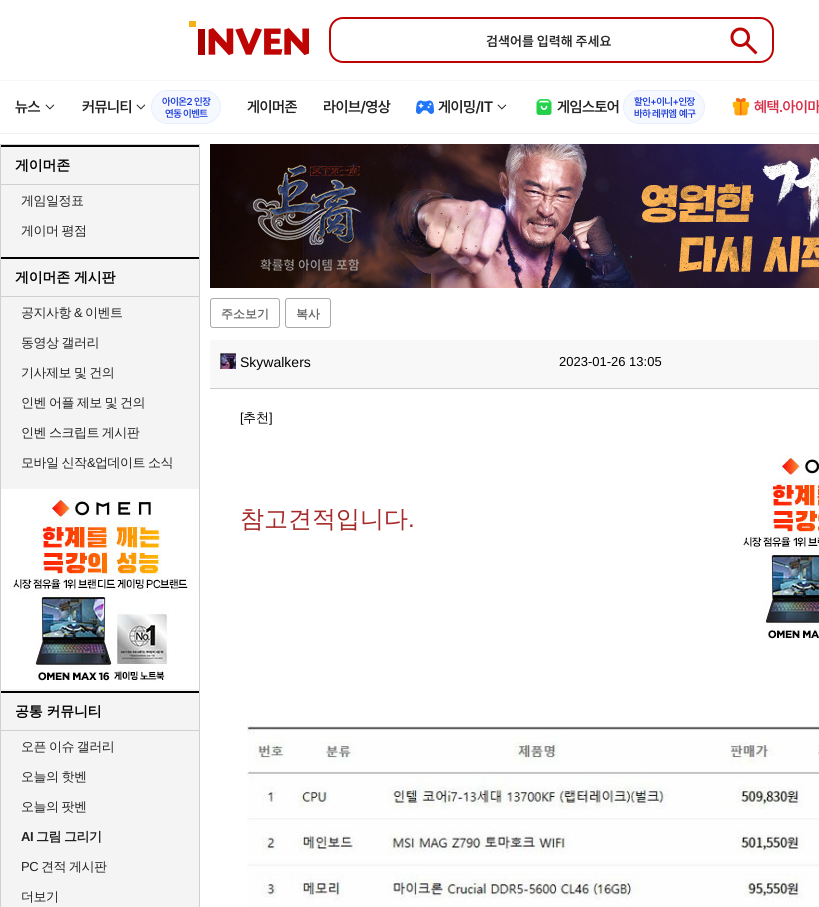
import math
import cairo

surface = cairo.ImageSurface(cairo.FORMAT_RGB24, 819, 907)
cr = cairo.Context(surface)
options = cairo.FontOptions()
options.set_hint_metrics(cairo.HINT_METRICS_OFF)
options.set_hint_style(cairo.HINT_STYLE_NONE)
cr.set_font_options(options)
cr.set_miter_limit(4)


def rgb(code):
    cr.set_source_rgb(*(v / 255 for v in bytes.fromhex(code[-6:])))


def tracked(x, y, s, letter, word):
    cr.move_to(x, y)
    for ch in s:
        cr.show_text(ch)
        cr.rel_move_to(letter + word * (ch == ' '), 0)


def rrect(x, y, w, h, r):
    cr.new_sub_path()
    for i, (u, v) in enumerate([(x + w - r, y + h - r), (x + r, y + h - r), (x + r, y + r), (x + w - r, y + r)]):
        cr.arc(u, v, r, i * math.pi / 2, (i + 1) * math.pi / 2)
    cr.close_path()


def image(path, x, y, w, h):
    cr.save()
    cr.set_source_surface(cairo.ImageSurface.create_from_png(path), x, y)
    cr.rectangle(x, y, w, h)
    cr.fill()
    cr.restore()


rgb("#ffffff")
cr.paint()
rgb("#f8f8f8")
cr.rectangle(0, 80, 819, 1)
cr.fill()
image("img/1.png", 189, 21, 120, 35)
rrect(330, 18, 443, 44, 13)
rgb("#bf0404")
cr.stroke()
image("img/2.png", 730, 27, 28, 28)
rgb("#f0f0f0")
cr.rectangle(0, 133, 819, 1)
cr.fill()
image("img/3.png", 45, 104, 10, 6)
image("img/3.png", 136, 104, 10, 6)
rgb("#f5f9ff")
rrect(151.5, 90.5, 69, 33, 16.5)
cr.fill_preserve()
rgb("#e6eefe")
cr.set_line_width(1)
cr.stroke()
image("img/4.png", 416, 100, 18, 14)
image("img/3.png", 497, 104, 10, 6)
image("img/5.png", 536, 99, 16, 16)
rgb("#f5f9ff")
rrect(623.5, 90.5, 81, 33, 16.5)
cr.fill_preserve()
rgb("#e6eefe")
cr.stroke()
image("img/6.png", 732, 98, 18, 18)
image("img/7.png", 210, 144, 609, 144)
rgb("#f4f4f4")
cr.rectangle(1, 147, 198, 760)
cr.fill()
cr.rectangle(0.5, 144.5, 199, 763)
rgb("#d0d0d0")
cr.stroke()
for x, y, w, h, color in [
    (1, 145, 198, 2, "#000000"),
    (1, 184, 198, 1, "#d0d0d0"),
    (1, 257, 198, 2, "#000000"),
    (1, 296, 198, 1, "#d0d0d0"),
]:
    rgb(color)
    cr.rectangle(x, y, w, h)
    cr.fill()
image("img/8.png", 1, 489, 198, 200)
rgb("#000000")
cr.rectangle(1, 691, 198, 2)
cr.fill()
rgb("#d0d0d0")
cr.rectangle(1, 730, 198, 1)
cr.fill()
rrect(210.5, 298.5, 69, 29, 2.5)
rgb("#aaaaaa")
cr.stroke()
rrect(285.5, 298.5, 45, 29, 2.5)
cr.stroke()
rgb("#f8f8f8")
cr.rectangle(210, 340, 609, 48)
cr.fill()
rgb("#cccccc")
cr.rectangle(210, 388, 609, 1)
cr.fill()
image("img/9.png", 220, 353, 16, 16)
image("img/10.png", 739, 455, 80, 184)
image("img/11.png", 247, 720, 572, 187)
cr.select_font_face("Noto Sans KR SemiBold")
cr.set_font_size(13)
rgb("#2b2b2b")
cr.move_to(486, 46)
cr.show_text("검색어를 입력해 주세요")
cr.select_font_face("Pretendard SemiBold")
cr.set_font_size(15)
rgb("#222222")
tracked(15, 112, "뉴스", -0.5, 0)
tracked(82, 112, "커뮤니티", -0.5, 0)
cr.set_font_size(10)
rgb("#1e3dd7")
for x, y, s in [
    (162, 105, "아이온2"),
    (194, 105, "인장"),
    (165, 117, "연동"),
    (183, 117, "이벤트"),
]:
    tracked(x, y, s, -0.5, 0)
cr.set_font_size(15)
rgb("#222222")
for x, y, s in [
    (247, 112, "게이머존"),
    (323, 112, "라이브/영상"),
    (438, 112, "게이밍/IT"),
    (557, 112, "게임스토어"),
]:
    tracked(x, y, s, -0.5, 0)
cr.set_font_size(10)
rgb("#1e3dd7")
for x, y, s in [
    (634, 105, "할인+이니+인장"),
    (634, 117, "바하"),
    (652, 117, "레퀴엠"),
    (679, 117, "예구"),
]:
    tracked(x, y, s, -0.5, 0)
cr.set_font_size(15)
rgb("#d83049")
tracked(754, 112, "혜택.아이마", -0.5, 0)
cr.select_font_face("WenQuanYi Zen Hei", cairo.FONT_SLANT_NORMAL, cairo.FONT_WEIGHT_BOLD)
cr.set_font_size(14)
rgb("#000000")
tracked(15, 170, "게이머존", -0.25, 0)
cr.select_font_face("WenQuanYi Zen Hei Medium")
cr.set_font_size(13)
rgb("#222222")
tracked(21, 205, "게임일정표", -0.5, 0)
tracked(21, 235, "게이머 평점", -0.5, -0.5)
cr.select_font_face("WenQuanYi Zen Hei", cairo.FONT_SLANT_NORMAL, cairo.FONT_WEIGHT_BOLD)
cr.set_font_size(14)
rgb("#000000")
tracked(15, 282, "게이머존 게시판", -0.25, 0)
cr.select_font_face("WenQuanYi Zen Hei Medium")
cr.set_font_size(13)
rgb("#222222")
tracked(21, 317, "공지사항", -0.5, 0)
cr.select_font_face("Liberation Sans")
tracked(74, 317, "&", -0.5, 0)
cr.select_font_face("WenQuanYi Zen Hei Medium")
tracked(85, 317, "이벤트", -0.5, 0)
for x, y, s in [
    (21, 347, "동영상 갤러리"),
    (21, 377, "기사제보 및 건의"),
    (21, 407, "인벤 어플 제보 및 건의"),
    (21, 437, "인벤 스크립트 게시판"),
    (21, 467, "모바일 신작"),
]:
    tracked(x, y, s, -0.5, -0.5)
cr.select_font_face("Liberation Sans")
tracked(87, 467, "&", -0.5, 0)
cr.select_font_face("WenQuanYi Zen Hei Medium")
tracked(95, 467, "업데이트 소식", -0.5, -0.5)
cr.select_font_face("WenQuanYi Zen Hei", cairo.FONT_SLANT_NORMAL, cairo.FONT_WEIGHT_BOLD)
cr.set_font_size(14)
rgb("#000000")
tracked(15, 716, "공통 커뮤니티", -0.25, 0)
cr.select_font_face("WenQuanYi Zen Hei Medium")
cr.set_font_size(13)
rgb("#222222")
for x, y, s in [
    (21, 751, "오픈 이슈 갤러리"),
    (21, 781, "오늘의 핫벤"),
    (21, 811, "오늘의 팟벤"),
]:
    tracked(x, y, s, -0.5, -0.5)
cr.select_font_face("Liberation Sans", cairo.FONT_SLANT_NORMAL, cairo.FONT_WEIGHT_BOLD)
tracked(21, 841, "AI", -0.5, 0)
cr.select_font_face("WenQuanYi Zen Hei", cairo.FONT_SLANT_NORMAL, cairo.FONT_WEIGHT_BOLD)
tracked(36, 841, "그림 그리기", -0.5, -0.5)
cr.select_font_face("Liberation Sans")
tracked(21, 871, "PC", -0.5, 0)
cr.select_font_face("WenQuanYi Zen Hei Medium")
tracked(41, 871, "견적 게시판", -0.5, -0.5)
tracked(21, 901, "더보기", -0.5, 0)
cr.select_font_face("WenQuanYi Zen Hei", cairo.FONT_SLANT_NORMAL, cairo.FONT_WEIGHT_BOLD)
cr.set_font_size(12)
rgb("#686868")
cr.move_to(221, 318)
cr.show_text("주소보기")
cr.move_to(296, 318)
cr.show_text("복사")
cr.select_font_face("Liberation Sans")
cr.set_font_size(14)
rgb("#000000")
cr.move_to(240, 367)
cr.show_text("Skywalkers")
cr.set_font_size(13)
cr.move_to(559, 366)
cr.show_text("2023-01-26 13:05")
cr.move_to(240, 422)
cr.show_text("[")
cr.select_font_face("WenQuanYi Zen Hei Medium")
cr.move_to(243, 422)
cr.show_text("추천")
cr.select_font_face("Liberation Sans")
cr.move_to(269, 422)
cr.show_text("]")
cr.select_font_face("WenQuanYi Zen Hei Medium")
cr.set_font_size(24)
rgb("#a52a2a")
cr.move_to(240, 527)
cr.show_text("참고견적입니다")
cr.select_font_face("Liberation Sans")
cr.move_to(408, 527)
cr.show_text(".")
surface.write_to_png("page.png")
